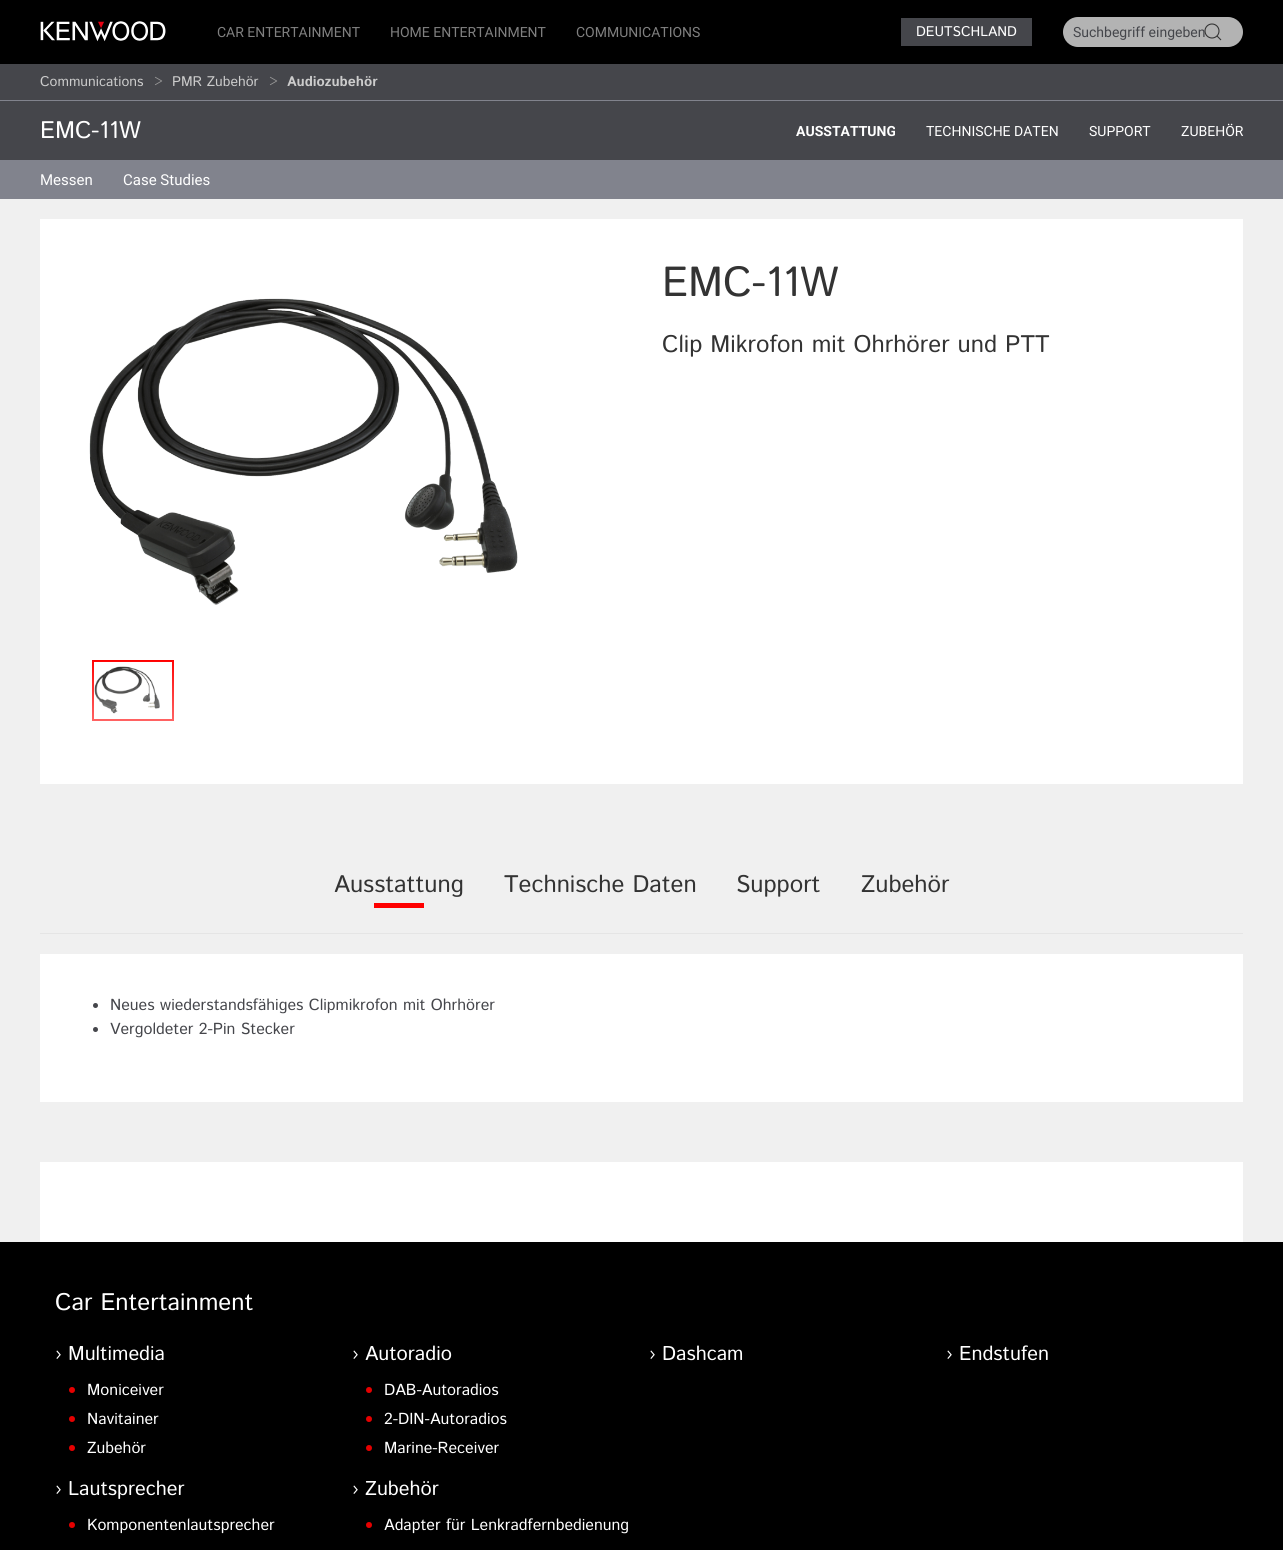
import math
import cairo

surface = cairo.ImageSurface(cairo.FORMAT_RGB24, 1283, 1550)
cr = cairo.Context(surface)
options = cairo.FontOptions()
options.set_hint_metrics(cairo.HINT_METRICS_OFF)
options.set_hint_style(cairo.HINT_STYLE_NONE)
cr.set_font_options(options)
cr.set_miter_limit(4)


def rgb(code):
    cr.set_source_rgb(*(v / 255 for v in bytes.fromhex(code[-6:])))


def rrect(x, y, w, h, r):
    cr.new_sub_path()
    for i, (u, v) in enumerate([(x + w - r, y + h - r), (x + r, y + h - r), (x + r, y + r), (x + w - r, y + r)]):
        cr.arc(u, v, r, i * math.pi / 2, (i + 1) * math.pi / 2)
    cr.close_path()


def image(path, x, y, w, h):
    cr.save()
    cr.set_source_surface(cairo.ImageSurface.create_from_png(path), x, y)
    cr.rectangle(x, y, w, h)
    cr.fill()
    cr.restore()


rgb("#f0f0f0")
cr.paint()
rgb("#000000")
cr.rectangle(0, 0, 1283, 64)
cr.fill()
image("img/1.png", 40, 21, 126, 21)
rgb("#45464b")
cr.rectangle(901, 18, 131, 28)
cr.fill()
rgb("#b3b3b3")
rrect(1063, 17, 180, 30, 15)
cr.fill()
for x, y, w, h, color in [
    (0, 64, 1283, 36, "#45464b"),
    (0, 101, 1283, 59, "#45464b"),
    (0, 100, 1283, 1, "#81838d"),
    (0, 160, 1283, 39, "#81838d"),
    (40, 219, 1203, 565, "#ffffff"),
]:
    rgb(color)
    cr.rectangle(x, y, w, h)
    cr.fill()
image("img/2.png", 89, 298, 429, 307)
cr.rectangle(93, 661, 80, 59)
rgb("#ff0000")
cr.stroke()
image("img/3.png", 94, 666, 66, 48)
gradient = cairo.LinearGradient(133, 657, 133, 723)
gradient.add_color_stop_rgba(0, 1, 1, 1, 0)
gradient.add_color_stop_rgba(1, 1, 1, 1, 0.4)
cr.set_source(gradient)
cr.rectangle(92, 661, 82, 60)
cr.fill()
for x, y, w, h, color in [
    (374, 903, 50, 5, "#ff0000"),
    (40, 933, 1203, 1, "#e5e5e5"),
    (40, 954, 1203, 148, "#ffffff"),
]:
    rgb(color)
    cr.rectangle(x, y, w, h)
    cr.fill()
rgb("#45464b")
cr.arc(95.5, 1005.5, 2.5, 0, 2 * math.pi)
cr.fill()
cr.arc(95.5, 1029.5, 2.5, 0, 2 * math.pi)
cr.fill()
rgb("#ffffff")
cr.rectangle(40, 1162, 1203, 80)
cr.fill()
rgb("#000000")
cr.rectangle(0, 1242, 1283, 308)
cr.fill()
rgb("#e60000")
cr.arc(72, 1390, 3, 0, 2 * math.pi)
cr.fill()
cr.arc(72, 1419, 3, 0, 2 * math.pi)
cr.fill()
cr.arc(72, 1448, 3, 0, 2 * math.pi)
cr.fill()
cr.arc(369, 1390, 3, 0, 2 * math.pi)
cr.fill()
cr.arc(369, 1419, 3, 0, 2 * math.pi)
cr.fill()
cr.arc(369, 1448, 3, 0, 2 * math.pi)
cr.fill()
cr.arc(72, 1525, 3, 0, 2 * math.pi)
cr.fill()
cr.arc(369, 1525, 3, 0, 2 * math.pi)
cr.fill()
cr.select_font_face("Roboto")
cr.set_font_size(14)
rgb("#808080")
for x, y, s in [
    (217, 37, "CAR ENTERTAINMENT"),
    (390, 37, "HOME ENTERTAINMENT"),
    (576, 37, "COMMUNICATIONS"),
]:
    cr.move_to(x, y)
    cr.show_text(s)
cr.select_font_face("Istok Web")
rgb("#ffffff")
cr.move_to(916, 36)
cr.show_text("DEUTSCHLAND")
cr.select_font_face("Roboto")
rgb("#45464b")
cr.move_to(1073, 37)
cr.show_text("Suchbegriff eingeben")
cr.new_path()
cr.arc(1212, 31, 7, 0, 2 * math.pi)
rgb("#333333")
cr.set_line_width(1.1)
cr.stroke()
cr.new_path()
cr.move_to(1217, 36)
cr.line_to(1221, 40)
cr.close_path()
cr.stroke()
cr.select_font_face("Istok Web")
rgb("#cccccc")
cr.move_to(40, 86)
cr.show_text("Communications")
rgb("#999999")
cr.move_to(154, 86)
cr.show_text(">")
rgb("#cccccc")
cr.move_to(172, 86)
cr.show_text("PMR Zubehör")
rgb("#999999")
cr.move_to(269, 86)
cr.show_text(">")
cr.select_font_face("Istok Web", cairo.FONT_SLANT_NORMAL, cairo.FONT_WEIGHT_BOLD)
rgb("#cccccc")
cr.move_to(287, 86)
cr.show_text("Audiozubehör")
cr.select_font_face("Istok Web")
cr.set_font_size(24)
rgb("#ffffff")
cr.move_to(40, 138)
cr.show_text("EMC-11W")
cr.select_font_face("Roboto", cairo.FONT_SLANT_NORMAL, cairo.FONT_WEIGHT_BOLD)
cr.set_font_size(14)
cr.move_to(796, 136)
cr.show_text("AUSSTATTUNG")
cr.select_font_face("Roboto")
for x, y, s in [
    (926, 136, "TECHNISCHE DATEN"),
    (1089, 136, "SUPPORT"),
    (1181, 136, "ZUBEHÖR"),
]:
    cr.move_to(x, y)
    cr.show_text(s)
cr.set_font_size(15)
cr.move_to(40, 185)
cr.show_text("Messen")
cr.move_to(123, 185)
cr.show_text("Case Studies")
cr.select_font_face("Istok Web")
cr.set_font_size(42)
rgb("#333333")
cr.move_to(662, 296)
cr.show_text("EMC-11W")
cr.set_font_size(24)
for x, y, s in [
    (662, 352, "Clip Mikrofon mit Ohrhörer und PTT"),
    (334, 892, "Ausstattung"),
    (504, 892, "Technische Daten"),
    (736, 892, "Support"),
    (861, 892, "Zubehör"),
]:
    cr.move_to(x, y)
    cr.show_text(s)
cr.set_font_size(16)
rgb("#45464b")
cr.move_to(110, 1010)
cr.show_text("Neues wiederstandsfähiges Clipmikrofon mit Ohrhörer")
cr.move_to(110, 1034)
cr.show_text("Vergoldeter 2-Pin Stecker")
cr.set_font_size(24)
rgb("#ffffff")
cr.move_to(55, 1310)
cr.show_text("Car Entertainment")
cr.set_font_size(20)
cr.move_to(55, 1360)
cr.show_text("›")
cr.move_to(68, 1360)
cr.show_text("Multimedia")
cr.set_font_size(16)
for x, y, s in [
    (87, 1395, "Moniceiver"),
    (87, 1424, "Navitainer"),
    (87, 1453, "Zubehör"),
]:
    cr.move_to(x, y)
    cr.show_text(s)
cr.set_font_size(20)
cr.move_to(352, 1360)
cr.show_text("›")
cr.move_to(365, 1360)
cr.show_text("Autoradio")
cr.set_font_size(16)
for x, y, s in [
    (384, 1395, "DAB-Autoradios"),
    (384, 1424, "2-DIN-Autoradios"),
    (384, 1453, "Marine-Receiver"),
]:
    cr.move_to(x, y)
    cr.show_text(s)
cr.set_font_size(20)
for x, y, s in [
    (649, 1360, "›"),
    (662, 1360, "Dashcam"),
    (946, 1360, "›"),
    (959, 1360, "Endstufen"),
    (55, 1495, "›"),
    (68, 1495, "Lautsprecher"),
]:
    cr.move_to(x, y)
    cr.show_text(s)
cr.set_font_size(16)
cr.move_to(87, 1530)
cr.show_text("Komponentenlautsprecher")
cr.set_font_size(20)
cr.move_to(352, 1495)
cr.show_text("›")
cr.move_to(365, 1495)
cr.show_text("Zubehör")
cr.set_font_size(16)
cr.move_to(384, 1530)
cr.show_text("Adapter für Lenkradfernbedienung")
surface.write_to_png("page.png")
